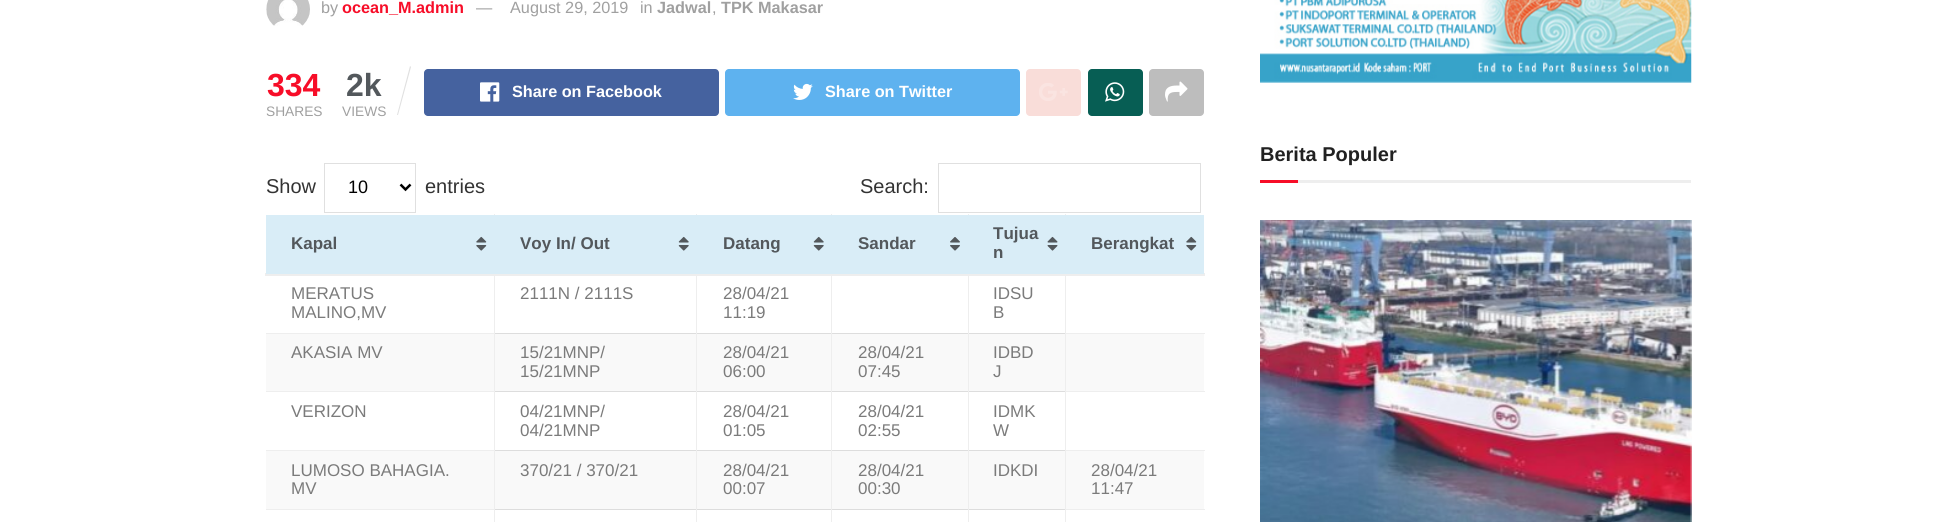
import math
import cairo

surface = cairo.ImageSurface(cairo.FORMAT_RGB24, 1957, 522)
cr = cairo.Context(surface)
options = cairo.FontOptions()
options.set_hint_metrics(cairo.HINT_METRICS_OFF)
options.set_hint_style(cairo.HINT_STYLE_NONE)
cr.set_font_options(options)
cr.set_miter_limit(4)


def rgb(code):
    cr.set_source_rgb(*(v / 255 for v in bytes.fromhex(code[-6:])))


def rrect(x, y, w, h, r):
    cr.new_sub_path()
    for i, (u, v) in enumerate([(x + w - r, y + h - r), (x + r, y + h - r), (x + r, y + r), (x + w - r, y + r)]):
        cr.arc(u, v, r, i * math.pi / 2, (i + 1) * math.pi / 2)
    cr.close_path()


def image(path, x, y, w, h):
    cr.save()
    cr.set_source_surface(cairo.ImageSurface.create_from_png(path), x, y)
    cr.rectangle(x, y, w, h)
    cr.fill()
    cr.restore()


rgb("#ffffff")
cr.paint()
image("img/1.png", 266, 0, 44, 26)
rgb("#e0e0e0")
cr.new_path()
cr.move_to(410, 66)
cr.line_to(411, 67)
cr.line_to(398, 115)
cr.line_to(397, 115)
cr.close_path()
cr.fill()
rgb("#45629f")
rrect(424, 69, 295, 47, 4)
cr.fill()
image("img/2.png", 480, 82, 20, 20)
rgb("#5eb2ef")
rrect(725, 69, 295, 47, 4)
cr.fill()
image("img/3.png", 793, 83, 20, 17)
rgb("#f9ddd9")
rrect(1026, 69, 55, 47, 4)
cr.fill()
image("img/4.png", 1039, 83, 29, 18)
rgb("#075e54")
rrect(1088, 69, 55, 47, 4)
cr.fill()
image("img/5.png", 1105, 82, 20, 20)
rgb("#bdbdbd")
rrect(1149, 69, 55, 47, 4)
cr.fill()
image("img/6.png", 1165, 81, 23, 21)
cr.rectangle(324.5, 163.5, 91, 49)
rgb("#e0e0e0")
cr.set_line_width(1)
cr.stroke()
cr.new_path()
cr.move_to(400.5, 184.5)
cr.line_to(405.5, 189.5)
cr.line_to(410.5, 184.5)
rgb("#000000")
cr.set_line_width(2.5)
cr.stroke()
cr.rectangle(938.5, 163.5, 262, 49)
rgb("#e0e0e0")
cr.set_line_width(1)
cr.stroke()
for x, y, w, h, color in [
    (266, 333, 939, 1, "#eeeeee"),
    (266, 391, 939, 1, "#eeeeee"),
    (495, 334, 473, 57, "#f9f9f9"),
    (494, 333, 572, 1, "#dddddd"),
    (266, 450, 939, 1, "#eeeeee"),
    (494, 391, 572, 1, "#dddddd"),
    (266, 509, 939, 1, "#eeeeee"),
    (495, 451, 473, 58, "#f9f9f9"),
    (494, 450, 572, 1, "#dddddd"),
    (494, 509, 572, 1, "#dddddd"),
    (696, 509, 1, 13, "#eeeeee"),
    (696, 450, 1, 60, "#eeeeee"),
    (696, 391, 1, 60, "#eeeeee"),
    (696, 273, 1, 120, "#eeeeee"),
    (494, 509, 1, 13, "#eeeeee"),
    (494, 450, 1, 60, "#eeeeee"),
    (494, 391, 1, 60, "#eeeeee"),
    (494, 273, 1, 120, "#eeeeee"),
    (831, 509, 1, 13, "#eeeeee"),
    (831, 450, 1, 60, "#eeeeee"),
    (831, 391, 1, 60, "#eeeeee"),
    (831, 273, 1, 120, "#eeeeee"),
    (968, 509, 1, 13, "#eeeeee"),
    (968, 450, 1, 60, "#eeeeee"),
    (968, 391, 1, 60, "#eeeeee"),
    (968, 273, 1, 120, "#eeeeee"),
    (1065, 509, 1, 13, "#eeeeee"),
    (1065, 450, 1, 60, "#eeeeee"),
    (1065, 391, 1, 60, "#eeeeee"),
    (1065, 273, 1, 120, "#eeeeee"),
    (265, 273, 940, 3, "#eeeeee"),
    (266, 215, 938, 59, "#d9edf7"),
]:
    rgb(color)
    cr.rectangle(x, y, w, h)
    cr.fill()
image("img/7.png", 476, 236, 11, 15)
rgb("#eeeeee")
cr.rectangle(494, 214, 1, 1)
cr.fill()
image("img/8.png", 678, 236, 11, 15)
cr.rectangle(696, 214, 1, 1)
cr.fill()
image("img/8.png", 813, 236, 11, 15)
cr.rectangle(831, 214, 1, 1)
cr.fill()
image("img/9.png", 950, 237, 10, 14)
cr.rectangle(1065, 214, 1, 1)
cr.fill()
cr.rectangle(968, 214, 1, 1)
cr.fill()
image("img/10.png", 1047, 236, 11, 15)
image("img/7.png", 1186, 236, 11, 15)
for x, y, w, h, color in [
    (266, 334, 228, 57, "#f9f9f9"),
    (969, 334, 96, 57, "#f9f9f9"),
    (1066, 334, 138, 57, "#f9f9f9"),
    (266, 451, 228, 58, "#f9f9f9"),
    (969, 451, 96, 58, "#f9f9f9"),
    (1066, 451, 138, 58, "#f9f9f9"),
]:
    rgb(color)
    cr.rectangle(x, y, w, h)
    cr.fill()
image("img/11.png", 1260, 0, 432, 83)
rgb("#eeeeee")
cr.rectangle(1298, 180, 393, 3)
cr.fill()
rgb("#f70d28")
cr.rectangle(1260, 180, 38, 3)
cr.fill()
image("img/12.png", 1260, 220, 432, 302)
cr.select_font_face("Liberation Sans")
cr.set_font_size(16.25)
rgb("#a0a0a0")
cr.move_to(321, 13)
cr.show_text("by")
cr.select_font_face("Liberation Sans", cairo.FONT_SLANT_NORMAL, cairo.FONT_WEIGHT_BOLD)
rgb("#f70d28")
cr.move_to(342, 13)
cr.show_text("ocean_M.admin")
cr.select_font_face("Liberation Sans")
rgb("#a0a0a0")
for x, y, s in [
    (476, 13, "—"),
    (510, 13, "August 29, 2019"),
    (640, 13, "in"),
]:
    cr.move_to(x, y)
    cr.show_text(s)
cr.select_font_face("Liberation Sans", cairo.FONT_SLANT_NORMAL, cairo.FONT_WEIGHT_BOLD)
cr.move_to(657, 13)
cr.show_text("Jadwal")
cr.select_font_face("Liberation Sans")
cr.move_to(712, 13)
cr.show_text(",")
cr.select_font_face("Liberation Sans", cairo.FONT_SLANT_NORMAL, cairo.FONT_WEIGHT_BOLD)
cr.move_to(721, 13)
cr.show_text("TPK Makasar")
cr.set_font_size(32)
rgb("#f70d28")
cr.move_to(267, 96)
cr.show_text("334")
cr.select_font_face("Liberation Sans")
cr.set_font_size(13.75)
rgb("#a0a0a0")
cr.move_to(266, 116)
cr.show_text("SHARES")
cr.select_font_face("Liberation Sans", cairo.FONT_SLANT_NORMAL, cairo.FONT_WEIGHT_BOLD)
cr.set_font_size(32)
rgb("#53585c")
cr.move_to(346, 96)
cr.show_text("2k")
cr.select_font_face("Liberation Sans")
cr.set_font_size(13.75)
rgb("#a0a0a0")
cr.move_to(342, 116)
cr.show_text("VIEWS")
cr.select_font_face("Liberation Sans", cairo.FONT_SLANT_NORMAL, cairo.FONT_WEIGHT_BOLD)
cr.set_font_size(16.25)
rgb("#ffffff")
cr.move_to(512, 97)
cr.show_text("Share on Facebook")
cr.move_to(825, 97)
cr.show_text("Share on Twitter")
cr.select_font_face("Liberation Sans")
cr.set_font_size(20)
rgb("#333333")
cr.move_to(266, 193)
cr.show_text("Show")
cr.set_font_size(18)
rgb("#000000")
cr.move_to(348, 193)
cr.show_text("10")
cr.set_font_size(20)
rgb("#333333")
cr.move_to(425, 193)
cr.show_text("entries")
cr.move_to(860, 193)
cr.show_text("Search:")
cr.select_font_face("Liberation Sans", cairo.FONT_SLANT_NORMAL, cairo.FONT_WEIGHT_BOLD)
cr.set_font_size(17)
rgb("#53585c")
for x, y, s in [
    (291, 249, "Kapal"),
    (520, 249, "Voy In/ Out"),
    (723, 249, "Datang"),
    (858, 249, "Sandar"),
    (993, 239, "Tujua"),
    (993, 258, "n"),
    (1091, 249, "Berangkat"),
]:
    cr.move_to(x, y)
    cr.show_text(s)
cr.select_font_face("Liberation Sans")
rgb("#7b7b7b")
for x, y, s in [
    (291, 299, "MERATUS"),
    (291, 318, "MALINO,MV"),
    (520, 299, "2111N / 2111S"),
    (723, 299, "28/04/21"),
    (723, 318, "11:19"),
    (993, 299, "IDSU"),
    (993, 318, "B"),
    (291, 358, "AKASIA MV"),
    (520, 358, "15/21MNP/"),
    (520, 377, "15/21MNP"),
    (723, 358, "28/04/21"),
    (723, 377, "06:00"),
    (858, 358, "28/04/21"),
    (858, 377, "07:45"),
    (993, 358, "IDBD"),
    (993, 377, "J"),
    (291, 417, "VERIZON"),
    (520, 417, "04/21MNP/"),
    (520, 436, "04/21MNP"),
    (723, 417, "28/04/21"),
    (723, 436, "01:05"),
    (858, 417, "28/04/21"),
    (858, 436, "02:55"),
    (993, 417, "IDMK"),
    (993, 436, "W"),
    (291, 476, "LUMOSO BAHAGIA."),
    (291, 494, "MV"),
    (520, 476, "370/21 / 370/21"),
    (723, 476, "28/04/21"),
    (723, 494, "00:07"),
    (858, 476, "28/04/21"),
    (858, 494, "00:30"),
    (993, 476, "IDKDI"),
    (1091, 476, "28/04/21"),
    (1091, 494, "11:47"),
]:
    cr.move_to(x, y)
    cr.show_text(s)
cr.select_font_face("Liberation Sans", cairo.FONT_SLANT_NORMAL, cairo.FONT_WEIGHT_BOLD)
cr.set_font_size(20)
rgb("#212121")
cr.move_to(1260, 161)
cr.show_text("Berita Populer")
surface.write_to_png("page.png")
